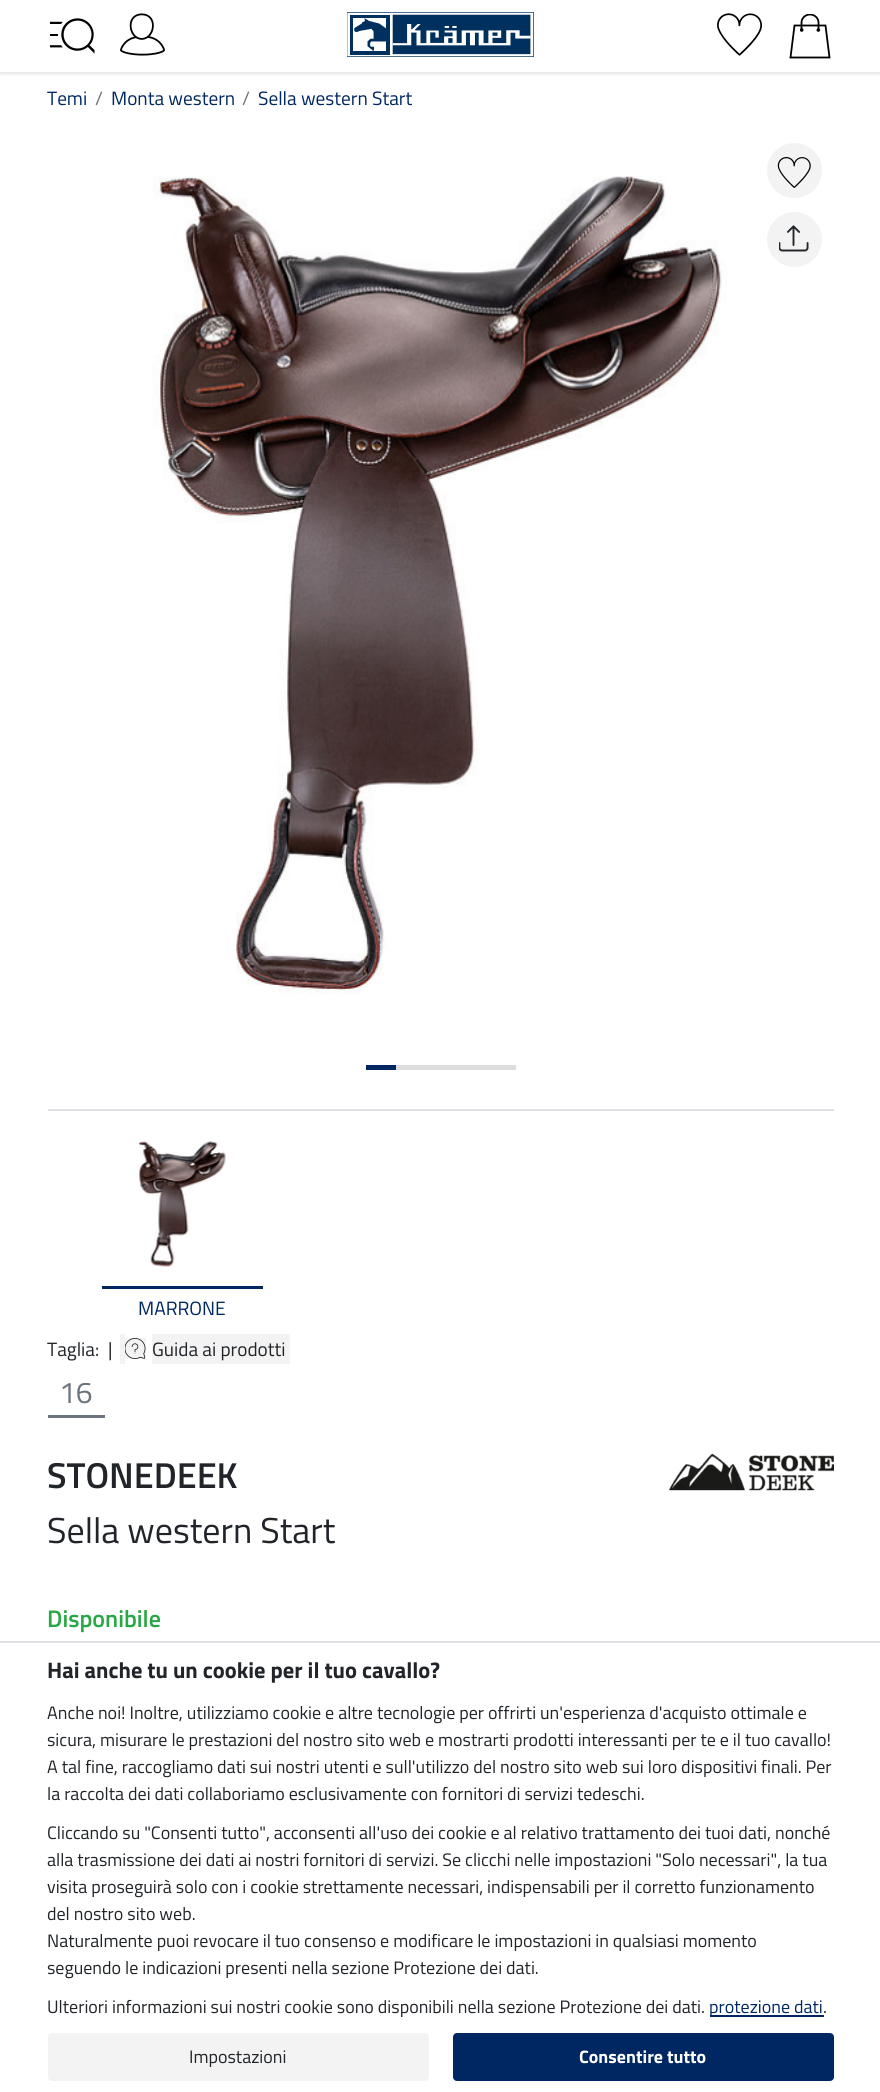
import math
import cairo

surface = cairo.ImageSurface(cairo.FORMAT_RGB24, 880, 2092)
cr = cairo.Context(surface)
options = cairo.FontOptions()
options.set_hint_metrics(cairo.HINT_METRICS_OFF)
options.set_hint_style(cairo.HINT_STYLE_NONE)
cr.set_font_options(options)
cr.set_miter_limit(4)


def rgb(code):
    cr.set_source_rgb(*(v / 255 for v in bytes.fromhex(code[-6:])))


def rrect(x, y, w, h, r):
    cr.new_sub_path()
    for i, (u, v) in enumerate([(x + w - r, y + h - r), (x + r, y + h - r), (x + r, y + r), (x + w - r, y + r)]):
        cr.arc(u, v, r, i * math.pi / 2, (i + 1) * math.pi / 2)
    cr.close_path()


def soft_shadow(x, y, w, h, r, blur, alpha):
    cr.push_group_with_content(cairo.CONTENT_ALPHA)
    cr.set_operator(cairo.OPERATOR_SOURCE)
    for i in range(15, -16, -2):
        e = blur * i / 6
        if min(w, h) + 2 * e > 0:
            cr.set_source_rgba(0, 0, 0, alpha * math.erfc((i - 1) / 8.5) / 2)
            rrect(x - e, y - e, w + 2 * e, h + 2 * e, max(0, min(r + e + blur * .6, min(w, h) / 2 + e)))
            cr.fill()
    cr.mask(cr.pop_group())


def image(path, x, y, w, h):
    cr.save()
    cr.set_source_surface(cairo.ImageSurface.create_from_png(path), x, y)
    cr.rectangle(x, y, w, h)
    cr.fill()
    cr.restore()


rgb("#ffffff")
cr.paint()
cr.save()
cr.rectangle(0, 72, 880, 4)
cr.clip()
rgb("#000000")
soft_shadow(0, 0, 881, 72, 0, 3, 0.2)
cr.restore()
image("img/1.png", 50, 18, 45, 36)
image("img/2.png", 120, 13, 45, 43)
image("img/3.png", 347, 12, 187, 45)
image("img/4.png", 717, 13, 45, 43)
cr.new_path()
cr.move_to(794.5, 25.5)
cr.line_to(790.5, 57.5)
cr.line_to(829.5, 57.5)
cr.line_to(825.5, 25.5)
cr.close_path()
rgb("#000000")
cr.set_line_width(1.8)
cr.set_line_cap(cairo.LINE_CAP_ROUND)
cr.stroke()
cr.save()
cr.rectangle(788, 14, 45, 45)
cr.clip()
cr.new_path()
cr.move_to(818.5, 30)
cr.line_to(818.5, 22.5)
cr.curve_to(818.5, 18, 814.5, 14.5, 810, 14.5)
cr.curve_to(805.5, 14.5, 801.5, 18, 801.5, 22.5)
cr.line_to(801.5, 30)
cr.stroke()
cr.restore()
cr.arc(801.7, 30, 1.8, 0, 2 * math.pi)
cr.fill()
cr.arc(818.3, 30, 1.8, 0, 2 * math.pi)
cr.fill()
rgb("#f3f3f3")
cr.arc(794.5, 170.5, 26.5, 0, 2 * math.pi)
cr.fill_preserve()
cr.set_line_width(2)
cr.set_line_cap(cairo.LINE_CAP_BUTT)
cr.stroke()
image("img/5.png", 777, 157, 34, 31)
image("img/6.png", 152, 176, 575, 819)
rgb("#002762")
cr.rectangle(366, 1065, 30, 5)
cr.fill()
rgb("#dddddd")
cr.rectangle(396, 1065, 120, 5)
cr.fill()
rgb("#f3f3f3")
cr.arc(794.5, 239.5, 26.5, 0, 2 * math.pi)
cr.fill_preserve()
cr.stroke()
image("img/7.png", 779, 225, 30, 27)
rgb("#dee2e6")
cr.rectangle(48, 1109, 786, 2)
cr.fill()
image("img/8.png", 139, 1141, 87, 126)
rgb("#002762")
cr.rectangle(102, 1286, 161, 3)
cr.fill()
rgb("#f3f3f3")
cr.rectangle(125, 1338, 21, 21)
cr.fill()
image("img/9.png", 125, 1338, 21, 21)
for x, y, w, h, color in [
    (120, 1334, 5, 30, "#f3f3f3"),
    (152, 1334, 138, 30, "#f3f3f3"),
    (48, 1415, 57, 3, "#6c757d"),
]:
    rgb(color)
    cr.rectangle(x, y, w, h)
    cr.fill()
image("img/10.png", 669, 1453, 165, 40)
rgb("#dee2e6")
cr.rectangle(0, 1641, 880, 2)
cr.fill()
rgb("#002762")
cr.rectangle(710, 2015, 114, 2)
cr.fill()
rgb("#f3f3f3")
rrect(49, 2034, 379, 46, 3)
cr.fill_preserve()
cr.stroke()
rgb("#002762")
rrect(454, 2034, 379, 46, 3)
cr.fill_preserve()
cr.stroke()
cr.select_font_face("Titillium Web")
cr.set_font_size(19.25)
cr.move_to(47, 105)
cr.show_text("Temi")
rgb("#6c757d")
cr.move_to(95, 105)
cr.show_text("/")
rgb("#002762")
cr.move_to(111, 105)
cr.show_text("Monta western")
rgb("#6c757d")
cr.move_to(242, 105)
cr.show_text("/")
rgb("#002762")
cr.move_to(258, 105)
cr.show_text("Sella western Start")
cr.move_to(138, 1315)
cr.show_text("MARRONE")
rgb("#212529")
for x, y, s in [
    (47, 1356, "Taglia:"),
    (108, 1356, "|"),
    (152, 1356, "Guida ai prodotti"),
]:
    cr.move_to(x, y)
    cr.show_text(s)
cr.set_font_size(30)
rgb("#6c757d")
cr.move_to(59, 1403)
cr.show_text("16")
cr.select_font_face("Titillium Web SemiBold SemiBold")
cr.set_font_size(36)
rgb("#212529")
cr.move_to(47, 1488)
cr.show_text("STONEDEEK")
cr.select_font_face("Titillium Web")
cr.move_to(47, 1543)
cr.show_text("Sella western Start")
cr.select_font_face("Titillium Web SemiBold SemiBold")
cr.set_font_size(24)
rgb("#28a745")
cr.move_to(47, 1627)
cr.show_text("Disponibile")
cr.select_font_face("Titillium Web", cairo.FONT_SLANT_NORMAL, cairo.FONT_WEIGHT_BOLD)
cr.set_font_size(22.5)
rgb("#212529")
cr.move_to(47, 1678)
cr.show_text("Hai anche tu un cookie per il tuo cavallo?")
cr.select_font_face("Titillium Web")
cr.set_font_size(18)
for x, y, s in [
    (47, 1719, "Anche noi! Inoltre, utilizziamo cookie e altre tecnologie per offrirti un'esperienza d'acquisto ottimale e"),
    (47, 1746, "sicura, misurare le prestazioni del nostro sito web e mostrarti prodotti interessanti per te e il tuo cavallo!"),
    (47, 1773, "A tal fine, raccogliamo dati sui nostri utenti e sull'utilizzo del nostro sito web sui loro dispositivi finali. Per"),
    (47, 1800, "la raccolta dei dati collaboriamo esclusivamente con fornitori di servizi tedeschi."),
    (47, 1839, "Cliccando su \"Consenti tutto\", acconsenti all'uso dei cookie e al relativo trattamento dei tuoi dati, nonché"),
    (47, 1866, "alla trasmissione dei dati ai nostri fornitori di servizi. Se clicchi nelle impostazioni \"Solo necessari\", la tua"),
    (47, 1893, "visita proseguirà solo con i cookie strettamente necessari, indispensabili per il corretto funzionamento"),
    (47, 1920, "del nostro sito web."),
    (47, 1947, "Naturalmente puoi revocare il tuo consenso e modificare le impostazioni in qualsiasi momento"),
    (47, 1974, "seguendo le indicazioni presenti nella sezione Protezione dei dati."),
    (47, 2013, "Ulteriori informazioni sui nostri cookie sono disponibili nella sezione Protezione dei dati."),
]:
    cr.move_to(x, y)
    cr.show_text(s)
rgb("#002762")
cr.move_to(709, 2013)
cr.show_text("protezione dati")
rgb("#212529")
cr.move_to(823, 2013)
cr.show_text(".")
cr.move_to(189, 2063)
cr.show_text("Impostazioni")
cr.select_font_face("Titillium Web", cairo.FONT_SLANT_NORMAL, cairo.FONT_WEIGHT_BOLD)
rgb("#ffffff")
cr.move_to(579, 2063)
cr.show_text("Consentire tutto")
surface.write_to_png("page.png")
